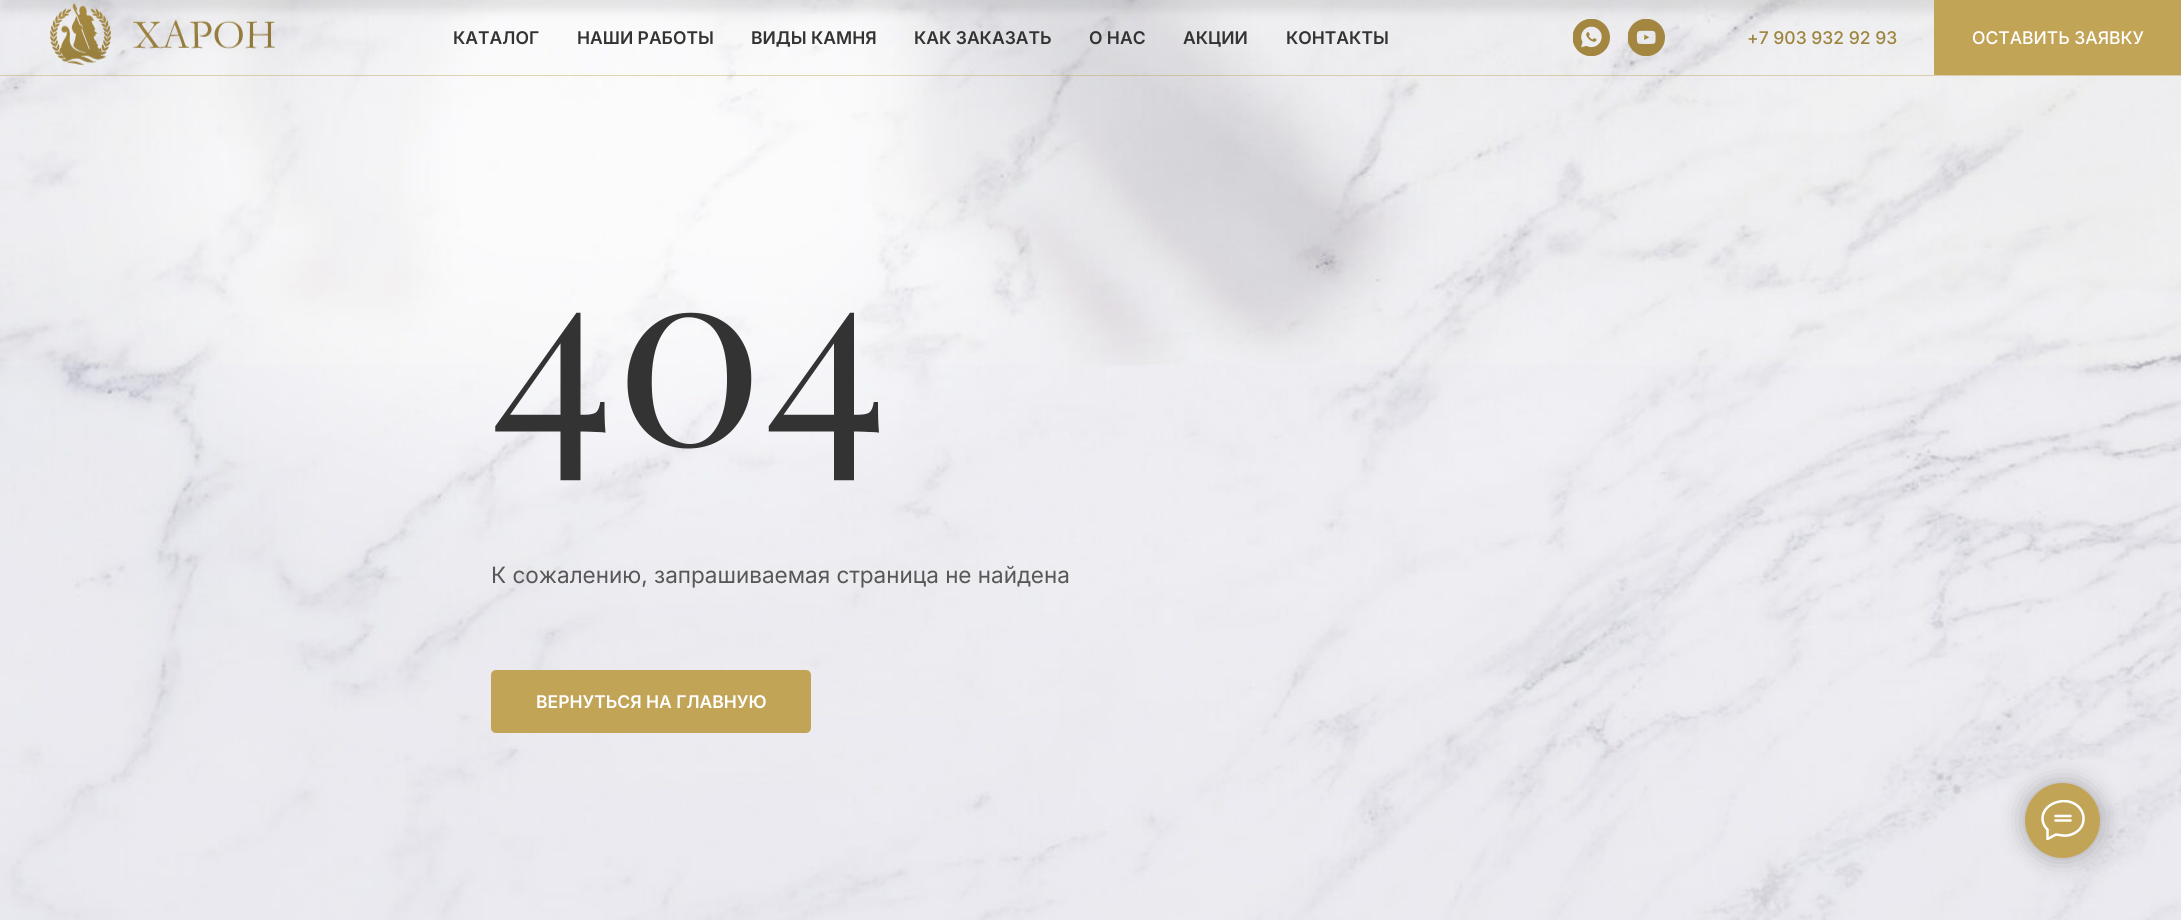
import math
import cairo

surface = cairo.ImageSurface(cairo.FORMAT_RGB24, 2181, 920)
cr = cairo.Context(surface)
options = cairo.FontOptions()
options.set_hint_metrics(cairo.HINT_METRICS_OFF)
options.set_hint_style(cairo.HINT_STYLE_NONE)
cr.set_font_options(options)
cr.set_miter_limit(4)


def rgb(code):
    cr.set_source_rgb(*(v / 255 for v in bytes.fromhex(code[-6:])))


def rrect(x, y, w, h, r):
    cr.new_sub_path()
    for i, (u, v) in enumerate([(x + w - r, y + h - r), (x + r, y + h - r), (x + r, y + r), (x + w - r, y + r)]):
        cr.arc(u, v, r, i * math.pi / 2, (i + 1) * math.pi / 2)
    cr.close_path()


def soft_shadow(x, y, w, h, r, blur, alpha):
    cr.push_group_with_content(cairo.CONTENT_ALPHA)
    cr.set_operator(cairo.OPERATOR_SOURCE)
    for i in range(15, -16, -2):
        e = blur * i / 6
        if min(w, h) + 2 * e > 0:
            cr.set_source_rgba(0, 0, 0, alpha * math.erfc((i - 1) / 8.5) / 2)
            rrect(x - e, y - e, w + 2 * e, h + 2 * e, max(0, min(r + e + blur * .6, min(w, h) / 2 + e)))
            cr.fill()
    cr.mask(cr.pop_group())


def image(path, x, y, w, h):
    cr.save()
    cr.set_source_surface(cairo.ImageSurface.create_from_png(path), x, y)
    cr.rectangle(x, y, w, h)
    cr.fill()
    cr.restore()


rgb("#ffffff")
cr.paint()
image("img/4.png", 0, 0, 2181, 920)
rgb("#000000")
soft_shadow(0, -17, 2181, 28, 0, 5.5, 0.09)
cr.set_source_rgba(0.761, 0.643, 0.341, 0.45)
cr.rectangle(0, 75, 2181, 1)
cr.fill()
image("img/1.png", 50, 3, 225, 63)
image("img/2.png", 1573, 19, 37, 37)
image("img/3.png", 1628, 19, 37, 37)
rgb("#c2a457")
cr.rectangle(1934, 0, 247, 75)
cr.fill()
rrect(491, 670, 320, 63, 5)
cr.fill()
rgb("#000000")
soft_shadow(2025, 783, 75, 75, 37.5, 12.5, 0.3)
rgb("#c2a457")
cr.arc(2062.5, 820.5, 37.5, 0, 2 * math.pi)
cr.fill()
cr.save()
cr.rectangle(2041, 800, 44, 40)
cr.clip()
cr.new_path()
cr.move_to(2055.5, 816)
cr.line_to(2070.5, 816)
cr.move_to(2055.5, 820.5)
cr.line_to(2070.5, 820.5)
cr.move_to(2047.5, 829.5)
cr.curve_to(2040.5, 823, 2041, 812.5, 2048.5, 806.5)
cr.curve_to(2052.5, 803, 2058, 801.5, 2063, 801)
cr.curve_to(2087.5, 801, 2091.5, 831, 2067.5, 835.5)
cr.curve_to(2063, 836, 2060, 835, 2056, 834.5)
cr.line_to(2047.5, 839)
cr.close_path()
rgb("#ffffff")
cr.set_line_width(2.5)
cr.set_line_cap(cairo.LINE_CAP_ROUND)
cr.set_line_join(cairo.LINE_JOIN_ROUND)
cr.stroke()
cr.restore()
cr.select_font_face("Inter SemiBold")
cr.set_font_size(17.5)
rgb("#333333")
for x, y, s in [
    (453, 44, "КАТАЛОГ"),
    (577, 44, "НАШИ РАБОТЫ"),
    (751, 44, "ВИДЫ КАМНЯ"),
    (914, 44, "КАК ЗАКАЗАТЬ"),
    (1089, 44, "О НАС"),
    (1183, 44, "АКЦИИ"),
    (1286, 44, "КОНТАКТЫ"),
]:
    cr.move_to(x, y)
    cr.show_text(s)
cr.select_font_face("Inter Medium")
rgb("#9e853f")
cr.move_to(1747, 44)
cr.show_text("+7 903 932 92 93")
rgb("#ffffff")
cr.move_to(1972, 44)
cr.show_text("ОСТАВИТЬ ЗАЯВКУ")
cr.select_font_face("Playfair Display")
cr.set_font_size(250)
rgb("#333333")
cr.move_to(491, 445)
cr.show_text("404")
cr.select_font_face("Inter")
cr.set_font_size(22.5)
rgb("#575757")
cr.move_to(491, 583)
cr.show_text("К сожалению, запрашиваемая страница не найдена")
cr.select_font_face("Inter SemiBold")
cr.set_font_size(17.5)
rgb("#ffffff")
cr.move_to(536, 708)
cr.show_text("ВЕРНУТЬСЯ НА ГЛАВНУЮ")
surface.write_to_png("page.png")
